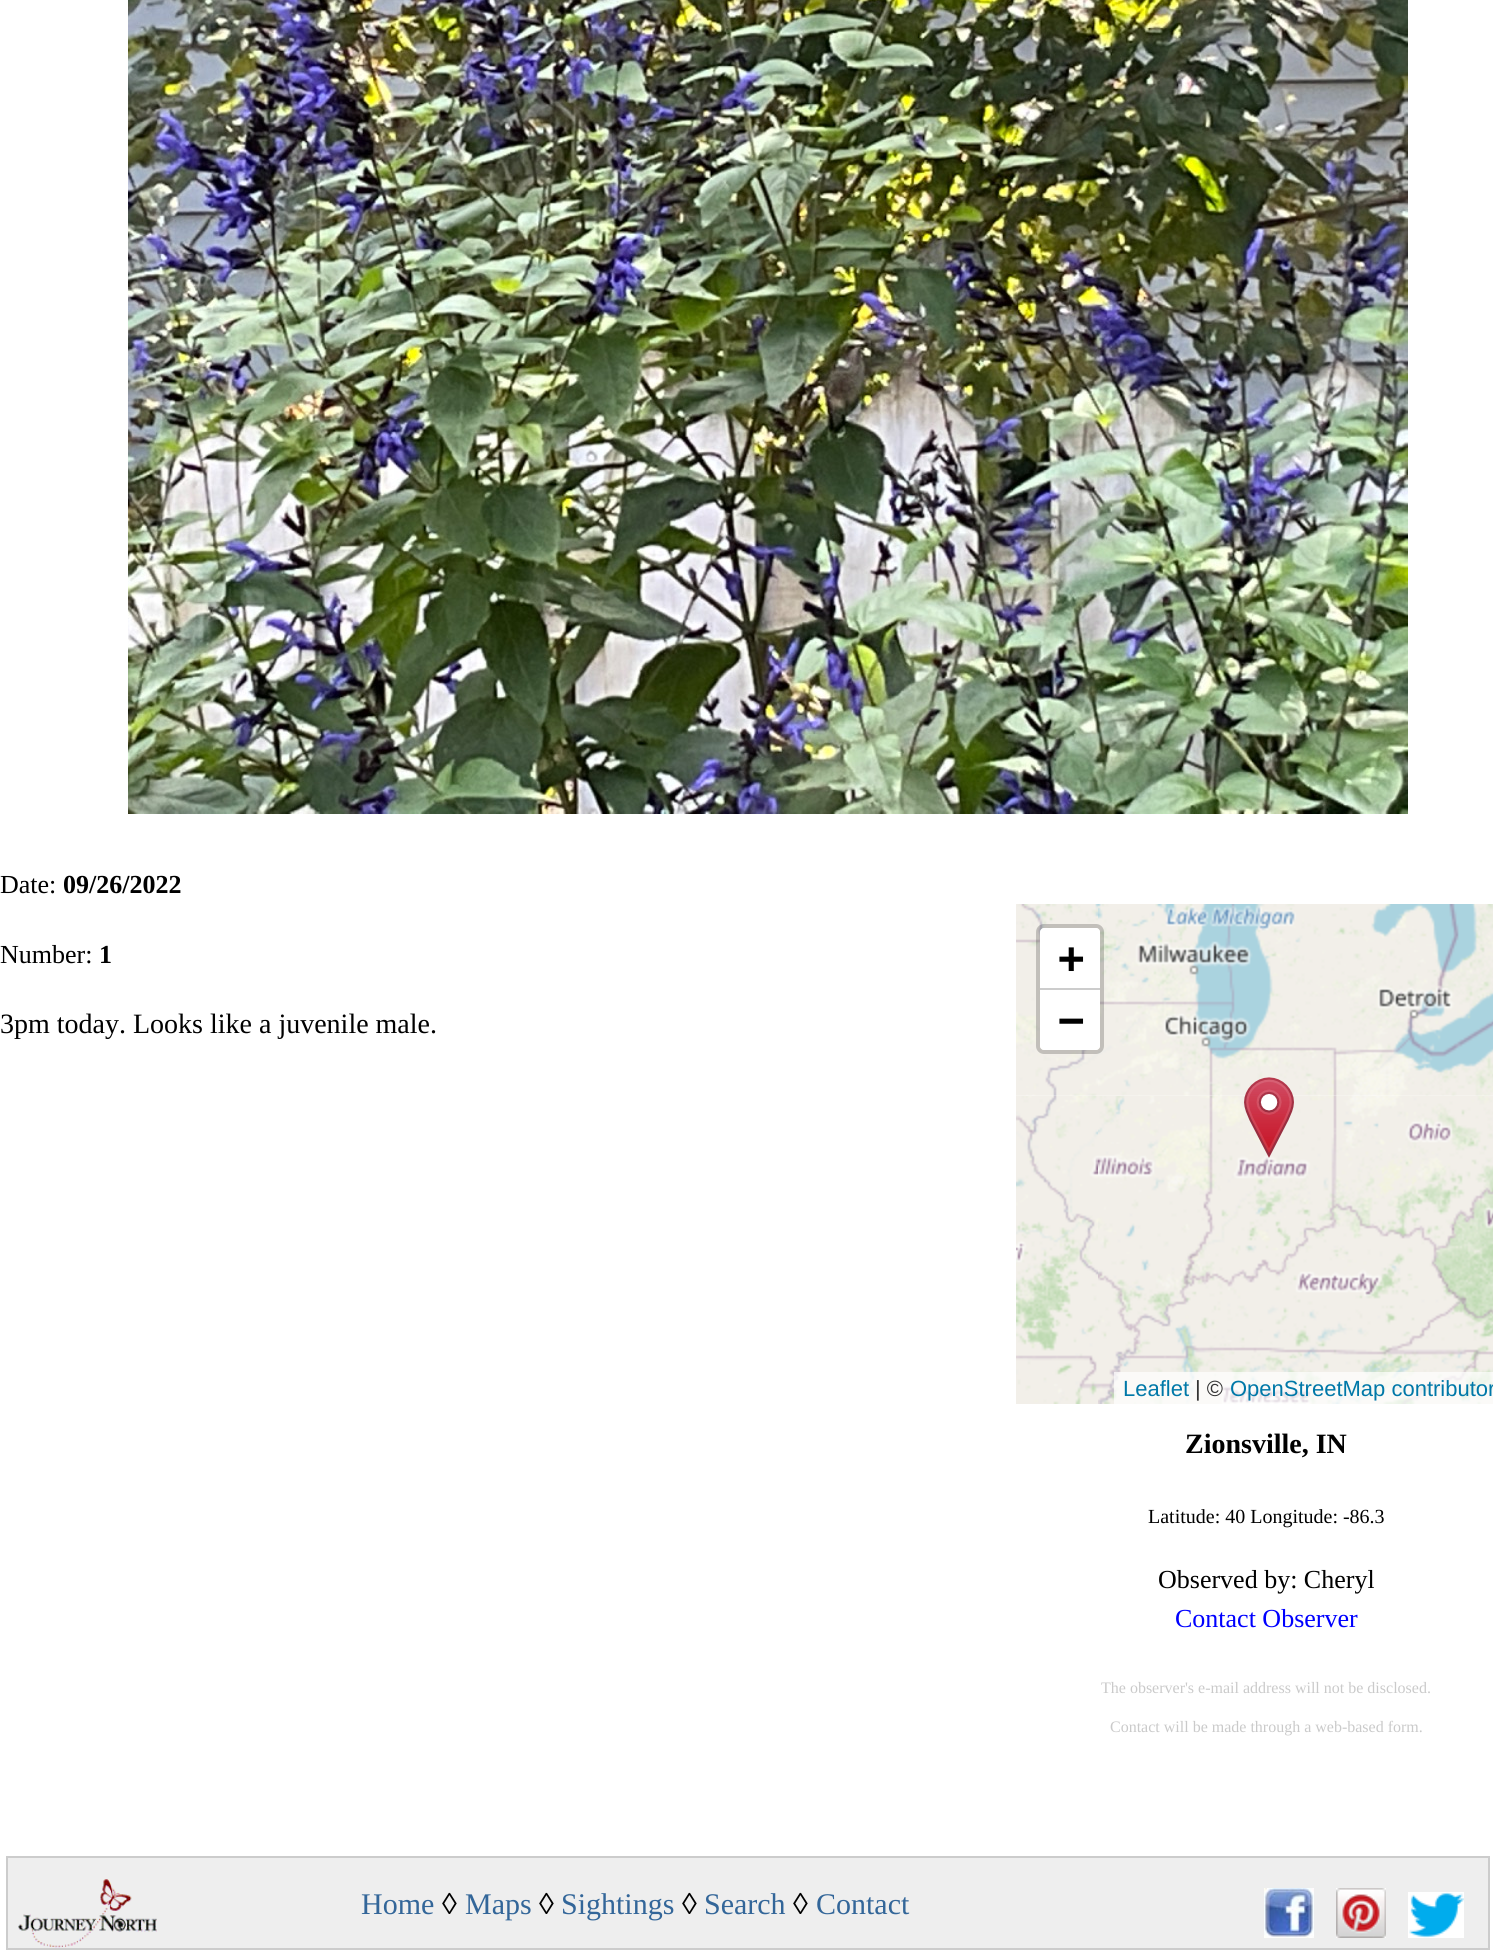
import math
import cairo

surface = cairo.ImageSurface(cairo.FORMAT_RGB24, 1493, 1960)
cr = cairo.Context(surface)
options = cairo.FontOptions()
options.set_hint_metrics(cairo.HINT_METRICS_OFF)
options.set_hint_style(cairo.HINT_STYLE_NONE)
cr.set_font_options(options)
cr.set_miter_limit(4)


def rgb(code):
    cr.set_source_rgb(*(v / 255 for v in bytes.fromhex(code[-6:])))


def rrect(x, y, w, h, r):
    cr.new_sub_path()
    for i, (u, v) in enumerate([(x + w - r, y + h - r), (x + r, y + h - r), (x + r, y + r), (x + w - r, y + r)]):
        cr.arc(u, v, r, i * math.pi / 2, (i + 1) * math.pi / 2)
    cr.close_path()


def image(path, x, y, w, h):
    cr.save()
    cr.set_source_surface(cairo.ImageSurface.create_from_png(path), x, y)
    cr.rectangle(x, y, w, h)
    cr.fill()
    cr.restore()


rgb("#ffffff")
cr.paint()
image("img/1.png", 128, 0, 1280, 814)
image("img/2.png", 1016, 904, 82, 192)
image("img/3.png", 1098, 904, 395, 192)
image("img/4.png", 1016, 1096, 82, 308)
image("img/5.png", 1098, 1096, 395, 308)
image("img/6.png", 1244, 1077, 50, 81)
rrect(1038, 926, 64, 126, 6)
cr.set_source_rgba(0, 0, 0, 0.2)
cr.set_line_width(4)
cr.stroke()
rgb("#ffffff")
cr.new_path()
cr.move_to(1044, 928)
cr.line_to(1096, 928)
cr.curve_to(1098, 928, 1100, 930, 1100, 932)
cr.line_to(1100, 990)
cr.line_to(1040, 990)
cr.line_to(1040, 932)
cr.curve_to(1040, 930, 1042, 928, 1044, 928)
cr.close_path()
cr.fill()
rgb("#cccccc")
cr.rectangle(1040, 988, 60, 2)
cr.fill()
rgb("#ffffff")
cr.new_path()
cr.move_to(1040, 990)
cr.line_to(1100, 990)
cr.line_to(1100, 1046)
cr.curve_to(1100, 1048, 1098, 1050, 1096, 1050)
cr.line_to(1044, 1050)
cr.curve_to(1042, 1050, 1040, 1048, 1040, 1046)
cr.close_path()
cr.fill()
cr.set_source_rgba(1, 1, 1, 0.7)
cr.rectangle(1114, 1372, 379, 32)
cr.fill()
rgb("#eeeeee")
cr.rectangle(8, 1858, 1480, 90)
cr.fill()
image("img/7.png", 18, 1879, 139, 69)
cr.rectangle(7, 1857, 1482, 92)
rgb("#cccccc")
cr.set_line_width(2)
cr.stroke()
image("img/8.png", 1264, 1888, 50, 50)
image("img/9.png", 1336, 1888, 50, 50)
image("img/10.png", 1408, 1892, 56, 46)
cr.select_font_face("Liberation Serif")
cr.set_font_size(26)
rgb("#000000")
cr.move_to(0, 893)
cr.show_text("Date:")
cr.select_font_face("Liberation Serif", cairo.FONT_SLANT_NORMAL, cairo.FONT_WEIGHT_BOLD)
cr.move_to(63, 893)
cr.show_text("09/26/2022")
cr.select_font_face("Liberation Serif")
cr.move_to(0, 963)
cr.show_text("Number:")
cr.select_font_face("Liberation Serif", cairo.FONT_SLANT_NORMAL, cairo.FONT_WEIGHT_BOLD)
cr.move_to(99, 963)
cr.show_text("1")
cr.select_font_face("Liberation Serif")
cr.set_font_size(28)
cr.move_to(0, 1033)
cr.show_text("3pm today. Looks like a juvenile male.")
cr.select_font_face("DejaVu Sans Mono", cairo.FONT_SLANT_NORMAL, cairo.FONT_WEIGHT_BOLD)
cr.set_font_size(44)
cr.move_to(1058, 973)
cr.show_text("+")
cr.move_to(1058, 1035)
cr.show_text("−")
cr.select_font_face("Liberation Sans")
cr.set_font_size(22)
rgb("#0078a8")
cr.move_to(1123, 1396)
cr.show_text("Leaflet")
rgb("#333333")
cr.move_to(1195, 1396)
cr.show_text("| ©")
rgb("#0078a8")
cr.move_to(1230, 1396)
cr.show_text("OpenStreetMap contributor")
cr.select_font_face("Liberation Serif", cairo.FONT_SLANT_NORMAL, cairo.FONT_WEIGHT_BOLD)
cr.set_font_size(28)
rgb("#000000")
cr.move_to(1185, 1453)
cr.show_text("Zionsville, IN")
cr.select_font_face("Liberation Serif")
cr.set_font_size(20)
cr.move_to(1148, 1523)
cr.show_text("Latitude: 40 Longitude: -86.3")
cr.set_font_size(26)
cr.move_to(1158, 1588)
cr.show_text("Observed by: Cheryl")
rgb("#0000ff")
cr.move_to(1175, 1627)
cr.show_text("Contact Observer")
cr.set_font_size(16)
rgb("#cacaca")
cr.move_to(1101, 1693)
cr.show_text("The observer's e-mail address will not be disclosed.")
cr.move_to(1110, 1732)
cr.show_text("Contact will be made through a web-based form.")
cr.set_font_size(30)
rgb("#336699")
cr.move_to(361, 1914)
cr.show_text("Home")
rgb("#000000")
cr.move_to(442, 1914)
cr.show_text("◊")
rgb("#336699")
cr.move_to(465, 1914)
cr.show_text("Maps")
rgb("#000000")
cr.move_to(539, 1914)
cr.show_text("◊")
rgb("#336699")
cr.move_to(561, 1914)
cr.show_text("Sightings")
rgb("#000000")
cr.move_to(682, 1914)
cr.show_text("◊")
rgb("#336699")
cr.move_to(704, 1914)
cr.show_text("Search")
rgb("#000000")
cr.move_to(793, 1914)
cr.show_text("◊")
rgb("#336699")
cr.move_to(816, 1914)
cr.show_text("Contact")
surface.write_to_png("page.png")
